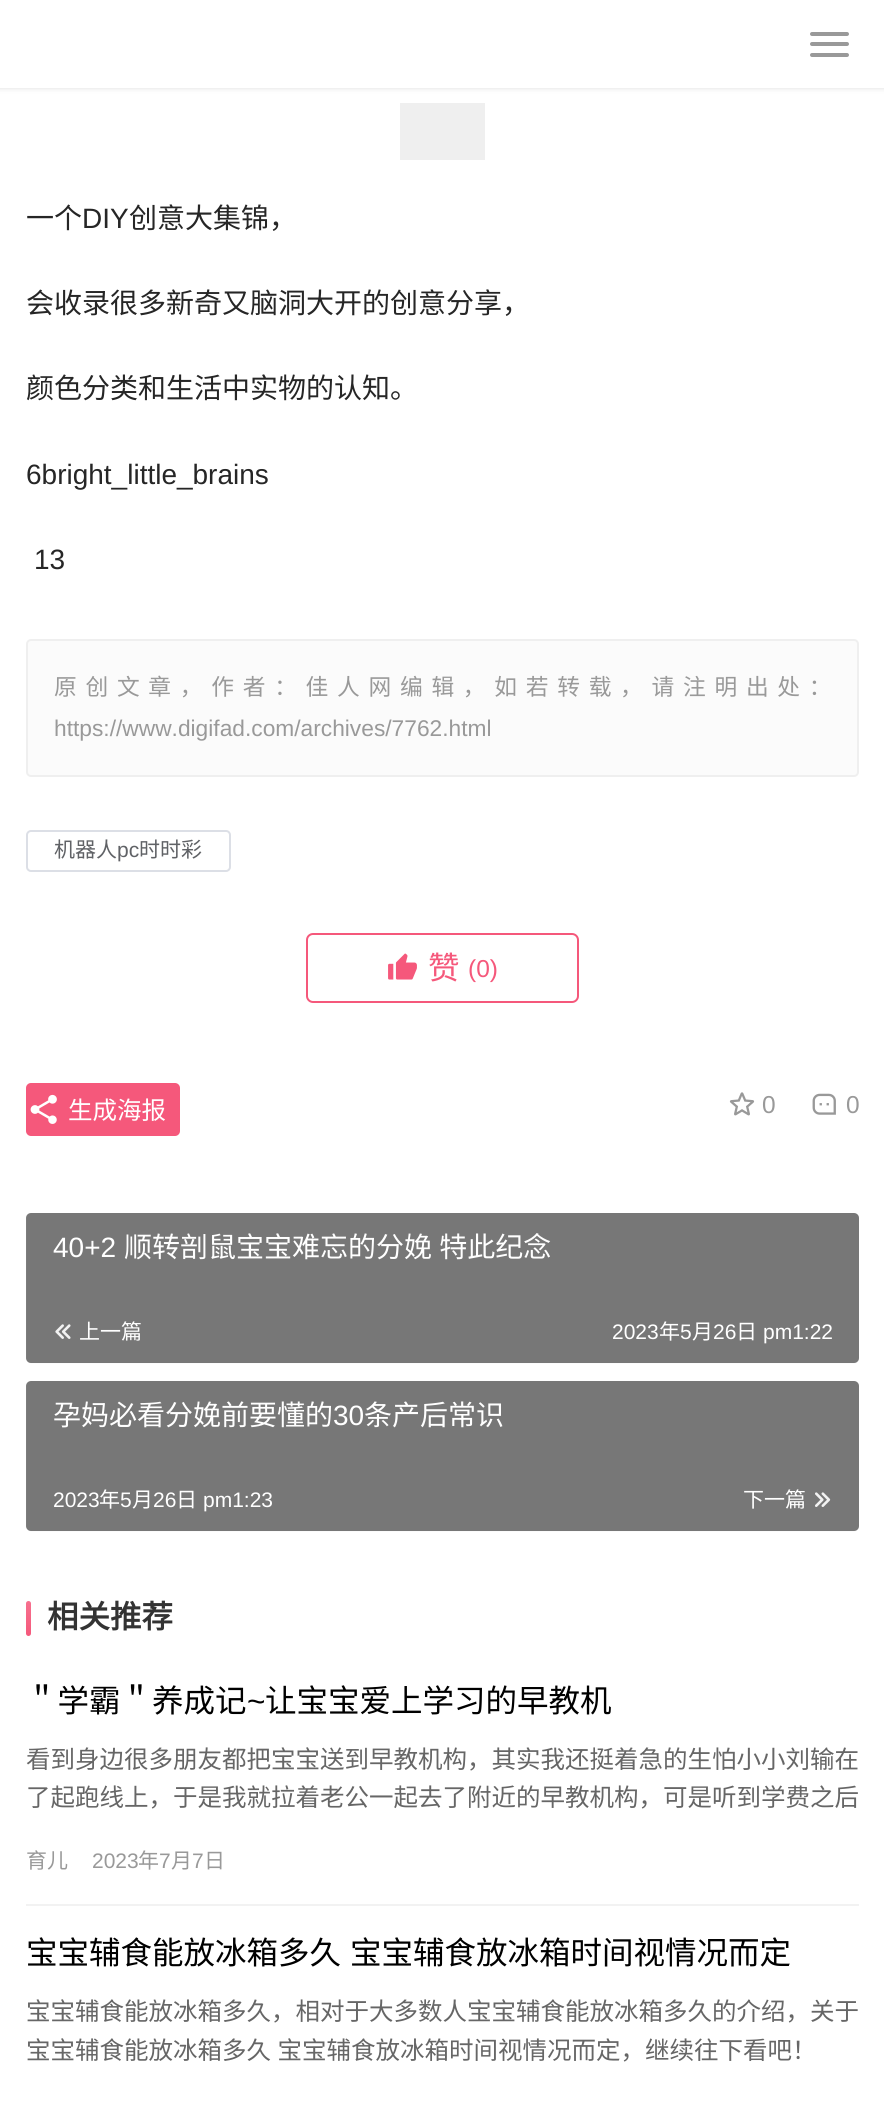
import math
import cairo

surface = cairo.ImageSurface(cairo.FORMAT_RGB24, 884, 2106)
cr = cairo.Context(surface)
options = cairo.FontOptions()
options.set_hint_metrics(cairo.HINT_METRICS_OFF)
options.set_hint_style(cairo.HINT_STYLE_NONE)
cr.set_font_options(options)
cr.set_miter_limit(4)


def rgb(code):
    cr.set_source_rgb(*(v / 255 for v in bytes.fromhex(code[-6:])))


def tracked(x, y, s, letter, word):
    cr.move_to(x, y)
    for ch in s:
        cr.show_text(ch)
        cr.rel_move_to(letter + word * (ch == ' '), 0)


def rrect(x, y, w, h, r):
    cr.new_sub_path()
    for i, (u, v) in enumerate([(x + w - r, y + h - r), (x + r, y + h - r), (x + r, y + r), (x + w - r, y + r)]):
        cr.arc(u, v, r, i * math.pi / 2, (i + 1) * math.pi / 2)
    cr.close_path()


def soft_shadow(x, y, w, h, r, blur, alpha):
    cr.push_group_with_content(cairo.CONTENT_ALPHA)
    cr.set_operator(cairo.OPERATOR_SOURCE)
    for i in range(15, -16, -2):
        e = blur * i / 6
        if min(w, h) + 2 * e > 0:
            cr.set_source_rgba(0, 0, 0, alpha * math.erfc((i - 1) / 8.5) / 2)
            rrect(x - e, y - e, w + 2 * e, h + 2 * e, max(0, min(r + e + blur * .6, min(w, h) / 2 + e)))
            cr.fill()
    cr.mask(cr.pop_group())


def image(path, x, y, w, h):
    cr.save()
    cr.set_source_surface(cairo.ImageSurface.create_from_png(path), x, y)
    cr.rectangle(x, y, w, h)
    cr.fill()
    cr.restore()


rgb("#ffffff")
cr.paint()
rgb("#000000")
soft_shadow(-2, -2, 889, 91, 0, 2.5, 0.1)
rgb("#ffffff")
cr.rectangle(0, 0, 884, 88)
cr.fill()
rgb("#999999")
rrect(810, 32, 39, 4, 2)
cr.fill()
rrect(810, 42, 39, 4, 2)
cr.fill()
rrect(810, 53, 39, 4, 2)
cr.fill()
rgb("#efefef")
cr.rectangle(400, 103, 85, 57)
cr.fill()
rgb("#fbfbfb")
rrect(27, 640, 831, 136, 4)
cr.fill_preserve()
rgb("#efefef")
cr.stroke()
rrect(27, 831, 203, 40, 4)
rgb("#dcdfe6")
cr.stroke()
rrect(307, 934, 271, 68, 6)
rgb("#f5587b")
cr.stroke()
image("img/1.png", 388, 953, 29, 27)
rrect(26, 1083, 154, 53, 5)
cr.fill()
image("img/2.png", 30, 1094, 27, 30)
image("img/3.png", 729, 1092, 26, 24)
image("img/4.png", 812, 1093, 24, 22)
image("img/5.png", 26, 1213, 833, 151)
cr.set_source_rgba(0, 0, 0, 0.5)
rrect(26, 1213, 833, 150, 5)
cr.fill()
image("img/6.png", 55, 1324, 16, 15)
image("img/5.png", 26, 1381, 833, 151)
rrect(26, 1381, 833, 150, 5)
cr.fill()
image("img/7.png", 815, 1492, 16, 15)
rgb("#f5587b")
rrect(26, 1601, 5, 35, 2.5)
cr.fill()
gradient = cairo.LinearGradient(29, 1601, 29, 1636)
gradient.add_color_stop_rgba(0, 1, 1, 1, 0.15)
gradient.add_color_stop_rgba(1, 1, 1, 1, 0)
cr.set_source(gradient)
rrect(26, 1601, 5, 35, 2.5)
cr.fill()
rgb("#f2f2f2")
cr.rectangle(26, 1904, 833, 2)
cr.fill()
cr.select_font_face("Noto Sans CJK SC")
cr.set_font_size(28)
rgb("#262626")
cr.move_to(26, 228)
cr.show_text("一个")
cr.select_font_face("Liberation Sans")
cr.move_to(82, 228)
cr.show_text("DIY")
cr.select_font_face("Noto Sans CJK SC")
for x, y, s in [
    (129, 228, "创意大集锦，"),
    (26, 313, "会收录很多新奇又脑洞大开的创意分享，"),
    (26, 398, "颜色分类和生活中实物的认知。"),
]:
    cr.move_to(x, y)
    cr.show_text(s)
cr.select_font_face("Liberation Sans")
cr.move_to(26, 484)
cr.show_text("6bright_little_brains")
cr.move_to(34, 569)
cr.show_text("13")
cr.select_font_face("Noto Sans CJK SC")
cr.set_font_size(22.75)
rgb("#999999")
tracked(54, 695, "原创文章，作者：佳人网编辑，如若转载，请注明出处：", 8.7, 0)
cr.select_font_face("Liberation Sans")
cr.move_to(54, 736)
cr.show_text("https://www.digifad.com/archives/7762.html")
cr.select_font_face("Noto Sans CJK SC")
cr.set_font_size(21)
rgb("#606266")
cr.move_to(54, 857)
cr.show_text("机器人")
cr.select_font_face("Liberation Sans")
cr.move_to(117, 857)
cr.show_text("pc")
cr.select_font_face("Noto Sans CJK SC")
cr.move_to(139, 857)
cr.show_text("时时彩")
cr.set_font_size(31.5)
rgb("#f5587b")
cr.move_to(428, 979)
cr.show_text("赞")
cr.select_font_face("Liberation Sans")
cr.set_font_size(24.5)
cr.move_to(468, 977)
cr.show_text("(0)")
cr.select_font_face("Noto Sans CJK SC")
rgb("#ffffff")
cr.move_to(68, 1119)
cr.show_text("生成海报")
cr.select_font_face("Liberation Sans")
rgb("#999999")
cr.move_to(762, 1113)
cr.show_text("0")
cr.move_to(846, 1113)
cr.show_text("0")
cr.set_font_size(28)
rgb("#ffffff")
cr.move_to(53, 1257)
cr.show_text("40+2")
cr.select_font_face("Noto Sans CJK SC")
tracked(124, 1257, "顺转剖鼠宝宝难忘的分娩 特此纪念", 0, 1)
cr.set_font_size(21)
cr.move_to(79, 1339)
cr.show_text("上一篇")
cr.select_font_face("Liberation Sans")
cr.move_to(612, 1339)
cr.show_text("2023")
cr.select_font_face("Noto Sans CJK SC")
cr.move_to(659, 1339)
cr.show_text("年")
cr.select_font_face("Liberation Sans")
cr.move_to(680, 1339)
cr.show_text("5")
cr.select_font_face("Noto Sans CJK SC")
cr.move_to(692, 1339)
cr.show_text("月")
cr.select_font_face("Liberation Sans")
cr.move_to(713, 1339)
cr.show_text("26")
cr.select_font_face("Noto Sans CJK SC")
cr.move_to(736, 1339)
cr.show_text("日")
cr.select_font_face("Liberation Sans")
cr.move_to(763, 1339)
cr.show_text("pm1:22")
cr.select_font_face("Noto Sans CJK SC")
cr.set_font_size(28)
cr.move_to(53, 1425)
cr.show_text("孕妈必看分娩前要懂的")
cr.select_font_face("Liberation Sans")
cr.move_to(333, 1425)
cr.show_text("30")
cr.select_font_face("Noto Sans CJK SC")
cr.move_to(364, 1425)
cr.show_text("条产后常识")
cr.select_font_face("Liberation Sans")
cr.set_font_size(21)
cr.move_to(53, 1507)
cr.show_text("2023")
cr.select_font_face("Noto Sans CJK SC")
cr.move_to(99, 1507)
cr.show_text("年")
cr.select_font_face("Liberation Sans")
cr.move_to(120, 1507)
cr.show_text("5")
cr.select_font_face("Noto Sans CJK SC")
cr.move_to(132, 1507)
cr.show_text("月")
cr.select_font_face("Liberation Sans")
cr.move_to(153, 1507)
cr.show_text("26")
cr.select_font_face("Noto Sans CJK SC")
cr.move_to(176, 1507)
cr.show_text("日")
cr.select_font_face("Liberation Sans")
cr.move_to(203, 1507)
cr.show_text("pm1:23")
cr.select_font_face("Noto Sans CJK SC")
cr.move_to(743, 1507)
cr.show_text("下一篇")
cr.select_font_face("Noto Sans CJK SC", cairo.FONT_SLANT_NORMAL, cairo.FONT_WEIGHT_BOLD)
cr.set_font_size(31.5)
rgb("#333333")
cr.move_to(47, 1628)
cr.show_text("相关推荐")
cr.select_font_face("Noto Sans CJK SC")
rgb("#000000")
cr.move_to(26, 1712)
cr.show_text("＂学霸＂养成记")
cr.select_font_face("Liberation Sans")
cr.move_to(247, 1712)
cr.show_text("~")
cr.select_font_face("Noto Sans CJK SC")
cr.move_to(265, 1712)
cr.show_text("让宝宝爱上学习的早教机")
cr.set_font_size(24.5)
rgb("#666666")
cr.move_to(26, 1768)
cr.show_text("看到身边很多朋友都把宝宝送到早教机构，其实我还挺着急的生怕小小刘输在")
cr.move_to(26, 1806)
cr.show_text("了起跑线上，于是我就拉着老公一起去了附近的早教机构，可是听到学费之后")
cr.set_font_size(21)
rgb("#999999")
cr.move_to(26, 1868)
cr.show_text("育儿")
cr.select_font_face("Liberation Sans")
cr.move_to(92, 1868)
cr.show_text("2023")
cr.select_font_face("Noto Sans CJK SC")
cr.move_to(138, 1868)
cr.show_text("年")
cr.select_font_face("Liberation Sans")
cr.move_to(159, 1868)
cr.show_text("7")
cr.select_font_face("Noto Sans CJK SC")
cr.move_to(171, 1868)
cr.show_text("月")
cr.select_font_face("Liberation Sans")
cr.move_to(192, 1868)
cr.show_text("7")
cr.select_font_face("Noto Sans CJK SC")
cr.move_to(204, 1868)
cr.show_text("日")
cr.set_font_size(31.5)
rgb("#000000")
tracked(26, 1964, "宝宝辅食能放冰箱多久 宝宝辅食放冰箱时间视情况而定", 0, 2)
cr.set_font_size(24.5)
rgb("#666666")
cr.move_to(26, 2020)
cr.show_text("宝宝辅食能放冰箱多久，相对于大多数人宝宝辅食能放冰箱多久的介绍，关于")
tracked(26, 2059, "宝宝辅食能放冰箱多久 宝宝辅食放冰箱时间视情况而定，继续往下看吧！", 0, 1)
surface.write_to_png("page.png")
